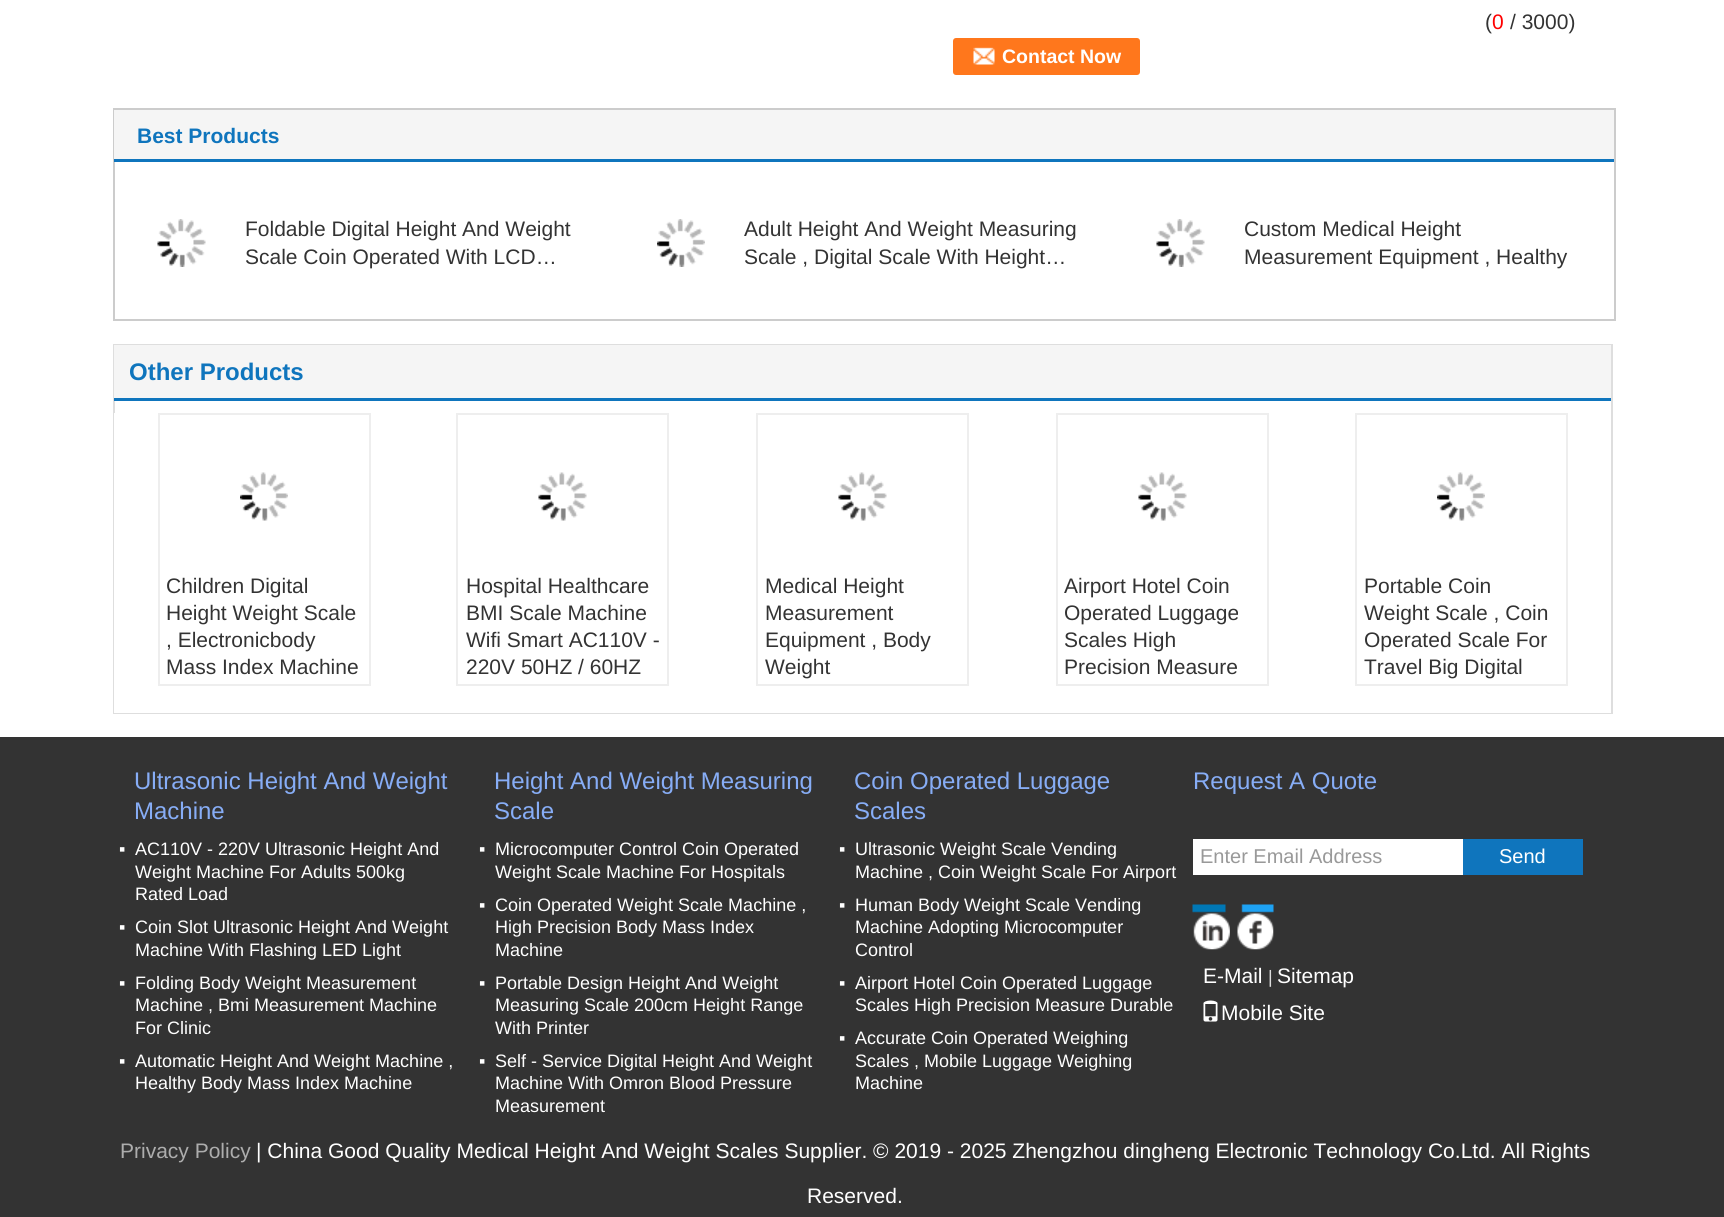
import math
import cairo

surface = cairo.ImageSurface(cairo.FORMAT_RGB24, 1724, 1217)
cr = cairo.Context(surface)
options = cairo.FontOptions()
options.set_hint_metrics(cairo.HINT_METRICS_OFF)
options.set_hint_style(cairo.HINT_STYLE_NONE)
cr.set_font_options(options)
cr.set_miter_limit(4)


def rgb(code):
    cr.set_source_rgb(*(v / 255 for v in bytes.fromhex(code[-6:])))


def rrect(x, y, w, h, r):
    cr.new_sub_path()
    for i, (u, v) in enumerate([(x + w - r, y + h - r), (x + r, y + h - r), (x + r, y + r), (x + w - r, y + r)]):
        cr.arc(u, v, r, i * math.pi / 2, (i + 1) * math.pi / 2)
    cr.close_path()


def image(path, x, y, w, h):
    cr.save()
    cr.set_source_surface(cairo.ImageSurface.create_from_png(path), x, y)
    cr.rectangle(x, y, w, h)
    cr.fill()
    cr.restore()


rgb("#ffffff")
cr.paint()
rgb("#ff771c")
rrect(953, 38, 187, 37, 3)
cr.fill()
image("img/1.png", 973, 47, 22, 18)
cr.rectangle(114, 109, 1501, 211)
rgb("#cccccc")
cr.stroke()
rgb("#f5f5f5")
cr.rectangle(114, 110, 1500, 49)
cr.fill()
rgb("#0f75bd")
cr.rectangle(114, 159, 1500, 3)
cr.fill()
image("img/2.png", 157, 219, 49, 48)
image("img/3.png", 657, 219, 48, 48)
image("img/4.png", 1156, 219, 49, 48)
cr.rectangle(114, 345, 1498, 368)
rgb("#dedede")
cr.stroke()
for x, y, w, h, color in [
    (114, 345, 1497, 53, "#f5f5f5"),
    (114, 398, 1497, 3, "#0f75bd"),
    (114, 413, 300, 300, "#ffffff"),
]:
    rgb(color)
    cr.rectangle(x, y, w, h)
    cr.fill()
cr.rectangle(159, 414, 211, 271)
rgb("#eeeeee")
cr.stroke()
image("img/5.png", 240, 472, 48, 49)
rgb("#ffffff")
cr.rectangle(414, 712, 1197, 1)
cr.fill()
cr.rectangle(457, 414, 211, 271)
rgb("#eeeeee")
cr.stroke()
image("img/6.png", 538, 472, 49, 49)
cr.rectangle(757, 414, 211, 271)
cr.stroke()
image("img/7.png", 838, 472, 49, 49)
cr.rectangle(1057, 414, 211, 271)
cr.stroke()
image("img/8.png", 1138, 472, 49, 49)
cr.rectangle(1356, 414, 211, 271)
cr.stroke()
image("img/5.png", 1437, 472, 48, 49)
for x, y, w, h, color in [
    (0, 737, 1724, 480, "#333333"),
    (1193, 839, 270, 36, "#ffffff"),
    (1463, 839, 120, 36, "#0f75bd"),
]:
    rgb(color)
    cr.rectangle(x, y, w, h)
    cr.fill()
image("img/9.png", 1192, 904, 38, 46)
image("img/10.png", 1237, 904, 37, 46)
image("img/11.png", 1203, 1000, 15, 22)
cr.select_font_face("Liberation Sans")
cr.set_font_size(21)
rgb("#333333")
cr.move_to(1485, 29)
cr.show_text("(")
rgb("#ff0000")
cr.move_to(1492, 29)
cr.show_text("0")
rgb("#333333")
cr.move_to(1510, 29)
cr.show_text("/ 3000)")
cr.select_font_face("Liberation Sans", cairo.FONT_SLANT_NORMAL, cairo.FONT_WEIGHT_BOLD)
cr.set_font_size(19.5)
rgb("#ffffff")
cr.move_to(1002, 63)
cr.show_text("Contact Now")
cr.set_font_size(21)
rgb("#0f75bd")
cr.move_to(137, 143)
cr.show_text("Best Products")
cr.select_font_face("Liberation Sans")
rgb("#333333")
for x, y, s in [
    (245, 236, "Foldable Digital Height And Weight"),
    (245, 264, "Scale Coin Operated With LCD…"),
    (744, 236, "Adult Height And Weight Measuring"),
    (744, 264, "Scale , Digital Scale With Height…"),
    (1244, 236, "Custom Medical Height"),
    (1244, 264, "Measurement Equipment , Healthy"),
]:
    cr.move_to(x, y)
    cr.show_text(s)
cr.select_font_face("Liberation Sans", cairo.FONT_SLANT_NORMAL, cairo.FONT_WEIGHT_BOLD)
cr.set_font_size(24)
rgb("#0f75bd")
cr.move_to(129, 380)
cr.show_text("Other Products")
cr.select_font_face("Liberation Sans")
cr.set_font_size(21)
rgb("#333333")
for x, y, s in [
    (166, 593, "Children Digital"),
    (166, 620, "Height Weight Scale"),
    (166, 647, ", Electronicbody"),
    (166, 674, "Mass Index Machine"),
    (466, 593, "Hospital Healthcare"),
    (466, 620, "BMI Scale Machine"),
    (466, 647, "Wifi Smart AC110V -"),
    (466, 674, "220V 50HZ / 60HZ"),
    (765, 593, "Medical Height"),
    (765, 620, "Measurement"),
    (765, 647, "Equipment , Body"),
    (765, 674, "Weight"),
    (1064, 593, "Airport Hotel Coin"),
    (1064, 620, "Operated Luggage"),
    (1064, 647, "Scales High"),
    (1064, 674, "Precision Measure"),
    (1364, 593, "Portable Coin"),
    (1364, 620, "Weight Scale , Coin"),
    (1364, 647, "Operated Scale For"),
    (1364, 674, "Travel Big Digital"),
]:
    cr.move_to(x, y)
    cr.show_text(s)
cr.set_font_size(24)
rgb("#87adf6")
cr.move_to(134, 789)
cr.show_text("Ultrasonic Height And Weight")
cr.move_to(134, 819)
cr.show_text("Machine")
cr.set_font_size(18)
rgb("#ffffff")
for x, y, s in [
    (119, 855, "▪"),
    (135, 855, "AC110V - 220V Ultrasonic Height And"),
    (135, 878, "Weight Machine For Adults 500kg"),
    (135, 900, "Rated Load"),
    (119, 933, "▪"),
    (135, 933, "Coin Slot Ultrasonic Height And Weight"),
    (135, 956, "Machine With Flashing LED Light"),
    (119, 989, "▪"),
    (135, 989, "Folding Body Weight Measurement"),
    (135, 1011, "Machine , Bmi Measurement Machine"),
    (135, 1034, "For Clinic"),
    (119, 1067, "▪"),
    (135, 1067, "Automatic Height And Weight Machine ,"),
    (135, 1089, "Healthy Body Mass Index Machine"),
]:
    cr.move_to(x, y)
    cr.show_text(s)
cr.set_font_size(24)
rgb("#87adf6")
cr.move_to(494, 789)
cr.show_text("Height And Weight Measuring")
cr.move_to(494, 819)
cr.show_text("Scale")
cr.set_font_size(18)
rgb("#ffffff")
for x, y, s in [
    (479, 855, "▪"),
    (495, 855, "Microcomputer Control Coin Operated"),
    (495, 878, "Weight Scale Machine For Hospitals"),
    (479, 911, "▪"),
    (495, 911, "Coin Operated Weight Scale Machine ,"),
    (495, 933, "High Precision Body Mass Index"),
    (495, 956, "Machine"),
    (479, 989, "▪"),
    (495, 989, "Portable Design Height And Weight"),
    (495, 1011, "Measuring Scale 200cm Height Range"),
    (495, 1034, "With Printer"),
    (479, 1067, "▪"),
    (495, 1067, "Self - Service Digital Height And Weight"),
    (495, 1089, "Machine With Omron Blood Pressure"),
    (495, 1112, "Measurement"),
]:
    cr.move_to(x, y)
    cr.show_text(s)
cr.set_font_size(24)
rgb("#87adf6")
cr.move_to(854, 789)
cr.show_text("Coin Operated Luggage")
cr.move_to(854, 819)
cr.show_text("Scales")
cr.set_font_size(18)
rgb("#ffffff")
for x, y, s in [
    (839, 855, "▪"),
    (855, 855, "Ultrasonic Weight Scale Vending"),
    (855, 878, "Machine , Coin Weight Scale For Airport"),
    (839, 911, "▪"),
    (855, 911, "Human Body Weight Scale Vending"),
    (855, 933, "Machine Adopting Microcomputer"),
    (855, 956, "Control"),
    (839, 989, "▪"),
    (855, 989, "Airport Hotel Coin Operated Luggage"),
    (855, 1011, "Scales High Precision Measure Durable"),
    (839, 1044, "▪"),
    (855, 1044, "Accurate Coin Operated Weighing"),
    (855, 1067, "Scales , Mobile Luggage Weighing"),
    (855, 1089, "Machine"),
]:
    cr.move_to(x, y)
    cr.show_text(s)
cr.set_font_size(24)
rgb("#87adf6")
cr.move_to(1193, 789)
cr.show_text("Request A Quote")
cr.set_font_size(20)
rgb("#999999")
cr.move_to(1200, 863)
cr.show_text("Enter Email Address")
rgb("#ffffff")
cr.move_to(1499, 863)
cr.show_text("Send")
cr.set_font_size(21)
cr.move_to(1203, 983)
cr.show_text("E-Mail")
cr.set_font_size(18)
rgb("#dddddd")
cr.move_to(1268, 983)
cr.show_text("|")
cr.set_font_size(21)
rgb("#ffffff")
cr.move_to(1277, 983)
cr.show_text("Sitemap")
cr.move_to(1221, 1020)
cr.show_text("Mobile Site")
rgb("#adadad")
cr.move_to(120, 1158)
cr.show_text("Privacy Policy")
rgb("#ffffff")
cr.move_to(256, 1158)
cr.show_text("| China Good Quality Medical Height And Weight Scales Supplier. © 2019 - 2025 Zhengzhou dingheng Electronic Technology Co.Ltd. All Rights")
cr.move_to(807, 1203)
cr.show_text("Reserved.")
surface.write_to_png("page.png")
